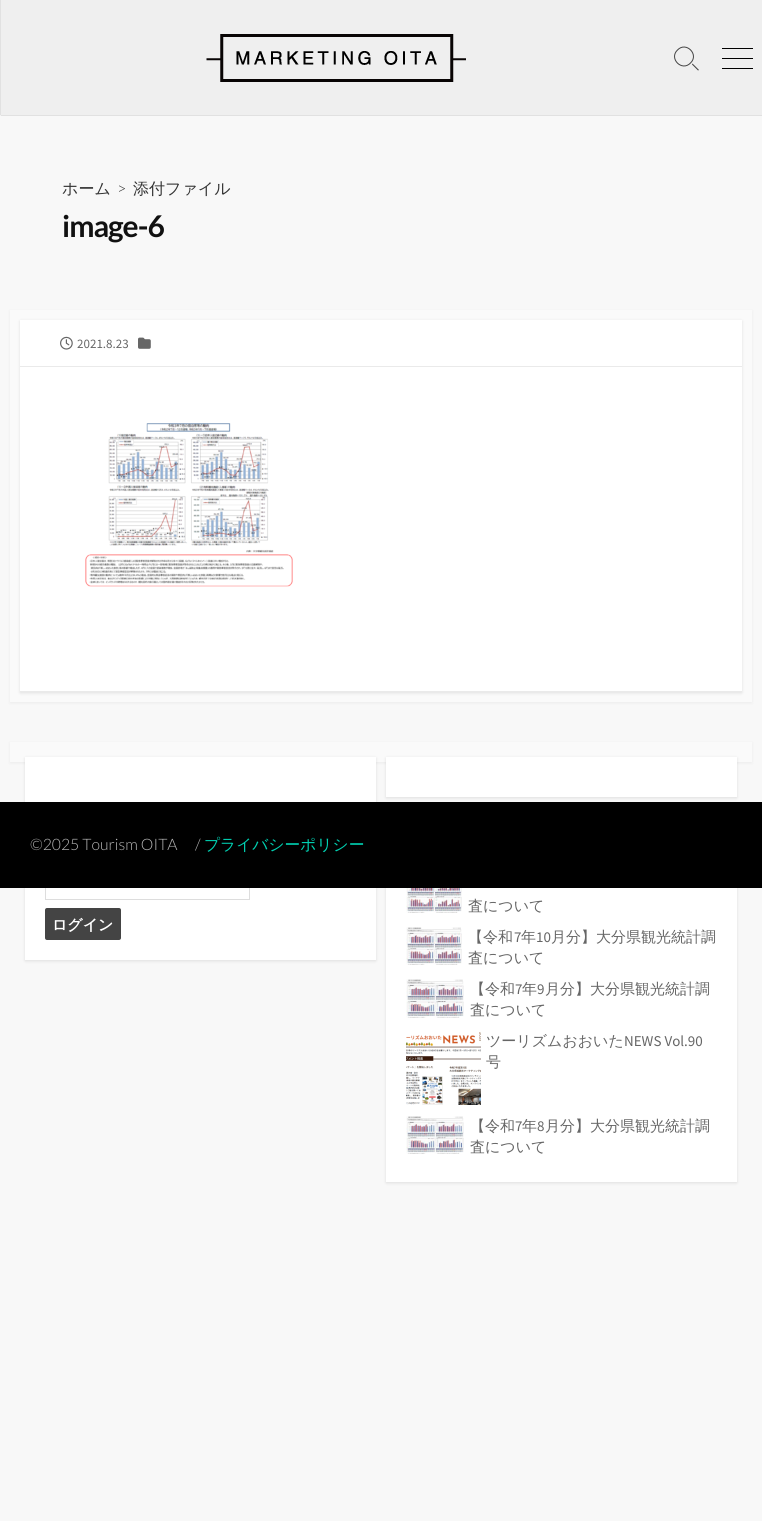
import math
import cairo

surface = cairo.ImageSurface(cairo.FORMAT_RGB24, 762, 1521)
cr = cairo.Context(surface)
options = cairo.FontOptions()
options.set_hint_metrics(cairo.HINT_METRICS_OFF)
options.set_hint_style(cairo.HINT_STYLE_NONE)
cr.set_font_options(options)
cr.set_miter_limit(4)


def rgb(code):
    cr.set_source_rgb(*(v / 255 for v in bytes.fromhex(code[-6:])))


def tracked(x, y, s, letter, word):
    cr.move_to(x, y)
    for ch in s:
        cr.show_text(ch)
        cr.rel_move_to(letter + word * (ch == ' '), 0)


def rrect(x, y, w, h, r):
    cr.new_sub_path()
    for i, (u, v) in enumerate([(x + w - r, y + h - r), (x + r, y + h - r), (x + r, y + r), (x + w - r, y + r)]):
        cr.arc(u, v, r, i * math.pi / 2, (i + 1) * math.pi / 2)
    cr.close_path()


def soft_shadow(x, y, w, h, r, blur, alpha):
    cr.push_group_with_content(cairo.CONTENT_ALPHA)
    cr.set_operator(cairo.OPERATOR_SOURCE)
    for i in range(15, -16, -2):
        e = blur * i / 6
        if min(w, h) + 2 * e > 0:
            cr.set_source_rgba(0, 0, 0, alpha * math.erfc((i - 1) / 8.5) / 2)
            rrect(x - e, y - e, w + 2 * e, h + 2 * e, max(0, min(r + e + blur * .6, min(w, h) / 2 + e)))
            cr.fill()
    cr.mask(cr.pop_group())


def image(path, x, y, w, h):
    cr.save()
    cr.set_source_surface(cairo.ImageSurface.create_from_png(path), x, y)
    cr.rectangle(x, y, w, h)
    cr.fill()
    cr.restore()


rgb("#f8f8f8")
cr.paint()
rgb("#000000")
soft_shadow(1, 0, 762, 115, 0, 0.5, 0.4)
rgb("#efefef")
cr.rectangle(1, 0, 761, 115)
cr.fill()
image("img/1.png", 206, 34, 260, 48)
cr.new_path()
cr.move_to(677.5, 50)
cr.curve_to(686, 41, 699.5, 54.5, 690.5, 63)
cr.curve_to(682, 72, 668.5, 58.5, 677.5, 50)
cr.close_path()
rgb("#444444")
cr.set_line_width(1)
cr.stroke()
cr.new_path()
cr.move_to(692, 64.5)
cr.line_to(692.5, 63.5)
cr.line_to(699, 70)
cr.line_to(698, 70.5)
cr.close_path()
cr.fill()
for x, y, w, h, color in [
    (722, 48, 31, 1, "#000000"),
    (722, 58, 31, 1, "#000000"),
    (722, 68, 31, 1, "#000000"),
]:
    rgb(color)
    cr.rectangle(x, y, w, h)
    cr.fill()
rgb("#000000")
soft_shadow(10, 311, 742, 392, 0, 1.5, 0.05)
rgb("#fafafa")
cr.rectangle(10, 310, 742, 392)
cr.fill()
rgb("#000000")
soft_shadow(20, 321, 722, 372, 0, 1.5, 0.1)
rgb("#ffffff")
cr.rectangle(20, 320, 722, 371)
cr.fill()
rgb("#eaeaea")
cr.rectangle(20, 366, 722, 1)
cr.fill()
image("img/2.png", 60, 336, 13, 14)
image("img/3.png", 138, 337, 13, 12)
cr.rectangle(20, 691, 722, 1)
cr.fill()
image("img/4.png", 85, 423, 208, 164)
rgb("#000000")
soft_shadow(10, 743, 742, 20, 0, 1.5, 0.05)
rgb("#fafafa")
cr.rectangle(10, 742, 742, 20)
cr.fill()
rgb("#000000")
soft_shadow(386, 758, 351, 40, 0, 1.5, 0.1)
rgb("#ffffff")
cr.rectangle(386, 757, 351, 40)
cr.fill()
rgb("#000000")
soft_shadow(25, 758, 351, 203, 0, 1.5, 0.1)
rgb("#ffffff")
cr.rectangle(25, 757, 351, 203)
cr.fill()
cr.rectangle(45.5, 869.5, 204, 30)
rgb("#dddddd")
cr.stroke()
rgb("#444444")
rrect(45, 908, 76, 32, 2)
cr.fill()
rgb("#000000")
soft_shadow(386, 808, 351, 375, 0, 1.5, 0.1)
rgb("#ffffff")
cr.rectangle(386, 888, 351, 294)
cr.fill()
image("img/5.png", 406, 888, 56, 25)
image("img/6.png", 406, 927, 56, 38)
image("img/7.png", 406, 979, 58, 39)
image("img/8.png", 406, 1032, 75, 73)
image("img/9.png", 406, 1116, 58, 38)
rgb("#000000")
cr.rectangle(0, 802, 762, 86)
cr.fill()
cr.select_font_face("WenQuanYi Zen Hei Medium")
cr.set_font_size(16)
rgb("#333333")
cr.move_to(62, 194)
cr.show_text("ホーム")
cr.select_font_face("Lato Light")
cr.move_to(117, 194)
cr.show_text(">")
cr.select_font_face("WenQuanYi Zen Hei Medium")
cr.move_to(133, 194)
cr.show_text("添付ファイル")
cr.select_font_face("Lato", cairo.FONT_SLANT_NORMAL, cairo.FONT_WEIGHT_BOLD)
cr.set_font_size(30)
rgb("#111111")
tracked(62, 237, "image-6", -1, 0)
cr.select_font_face("Source Sans Pro")
cr.set_font_size(13)
rgb("#666666")
cr.move_to(77, 348)
cr.show_text("2021.8.23")
cr.select_font_face("WenQuanYi Zen Hei", cairo.FONT_SLANT_NORMAL, cairo.FONT_WEIGHT_BOLD)
cr.set_font_size(15)
rgb("#ffffff")
cr.move_to(52, 930)
cr.show_text("ログイン")
cr.select_font_face("WenQuanYi Zen Hei Medium")
rgb("#666666")
cr.move_to(468, 911)
cr.show_text("査について")
cr.move_to(468, 942)
cr.show_text("【令和")
cr.select_font_face("Source Sans Pro")
cr.move_to(514, 942)
cr.show_text("7")
cr.select_font_face("WenQuanYi Zen Hei Medium")
cr.move_to(521, 942)
cr.show_text("年")
cr.select_font_face("Source Sans Pro")
cr.move_to(536, 942)
cr.show_text("10")
cr.select_font_face("WenQuanYi Zen Hei Medium")
for x, y, s in [
    (551, 942, "月分】大分県観光統計調"),
    (468, 963, "査について"),
    (470, 994, "【令和"),
]:
    cr.move_to(x, y)
    cr.show_text(s)
cr.select_font_face("Source Sans Pro")
cr.move_to(515, 994)
cr.show_text("7")
cr.select_font_face("WenQuanYi Zen Hei Medium")
cr.move_to(522, 994)
cr.show_text("年")
cr.select_font_face("Source Sans Pro")
cr.move_to(537, 994)
cr.show_text("9")
cr.select_font_face("WenQuanYi Zen Hei Medium")
for x, y, s in [
    (545, 994, "月分】大分県観光統計調"),
    (470, 1015, "査について"),
    (486, 1046, "ツーリズムおおいた"),
]:
    cr.move_to(x, y)
    cr.show_text(s)
cr.select_font_face("Source Sans Pro")
cr.move_to(624, 1046)
cr.show_text("NEWS Vol.90")
cr.select_font_face("WenQuanYi Zen Hei Medium")
cr.move_to(486, 1067)
cr.show_text("号")
cr.move_to(470, 1131)
cr.show_text("【令和")
cr.select_font_face("Source Sans Pro")
cr.move_to(515, 1131)
cr.show_text("7")
cr.select_font_face("WenQuanYi Zen Hei Medium")
cr.move_to(522, 1131)
cr.show_text("年")
cr.select_font_face("Source Sans Pro")
cr.move_to(537, 1131)
cr.show_text("8")
cr.select_font_face("WenQuanYi Zen Hei Medium")
cr.move_to(545, 1131)
cr.show_text("月分】大分県観光統計調")
cr.move_to(470, 1152)
cr.show_text("査について")
cr.select_font_face("Lato Light")
cr.set_font_size(15.75)
rgb("#b8b8b8")
cr.move_to(30, 850)
cr.show_text("©2025 Tourism OITA")
cr.move_to(195, 850)
cr.show_text("/")
cr.select_font_face("WenQuanYi Zen Hei Medium")
rgb("#00d1b2")
cr.move_to(204, 850)
cr.show_text("プライバシーポリシー")
surface.write_to_png("page.png")
